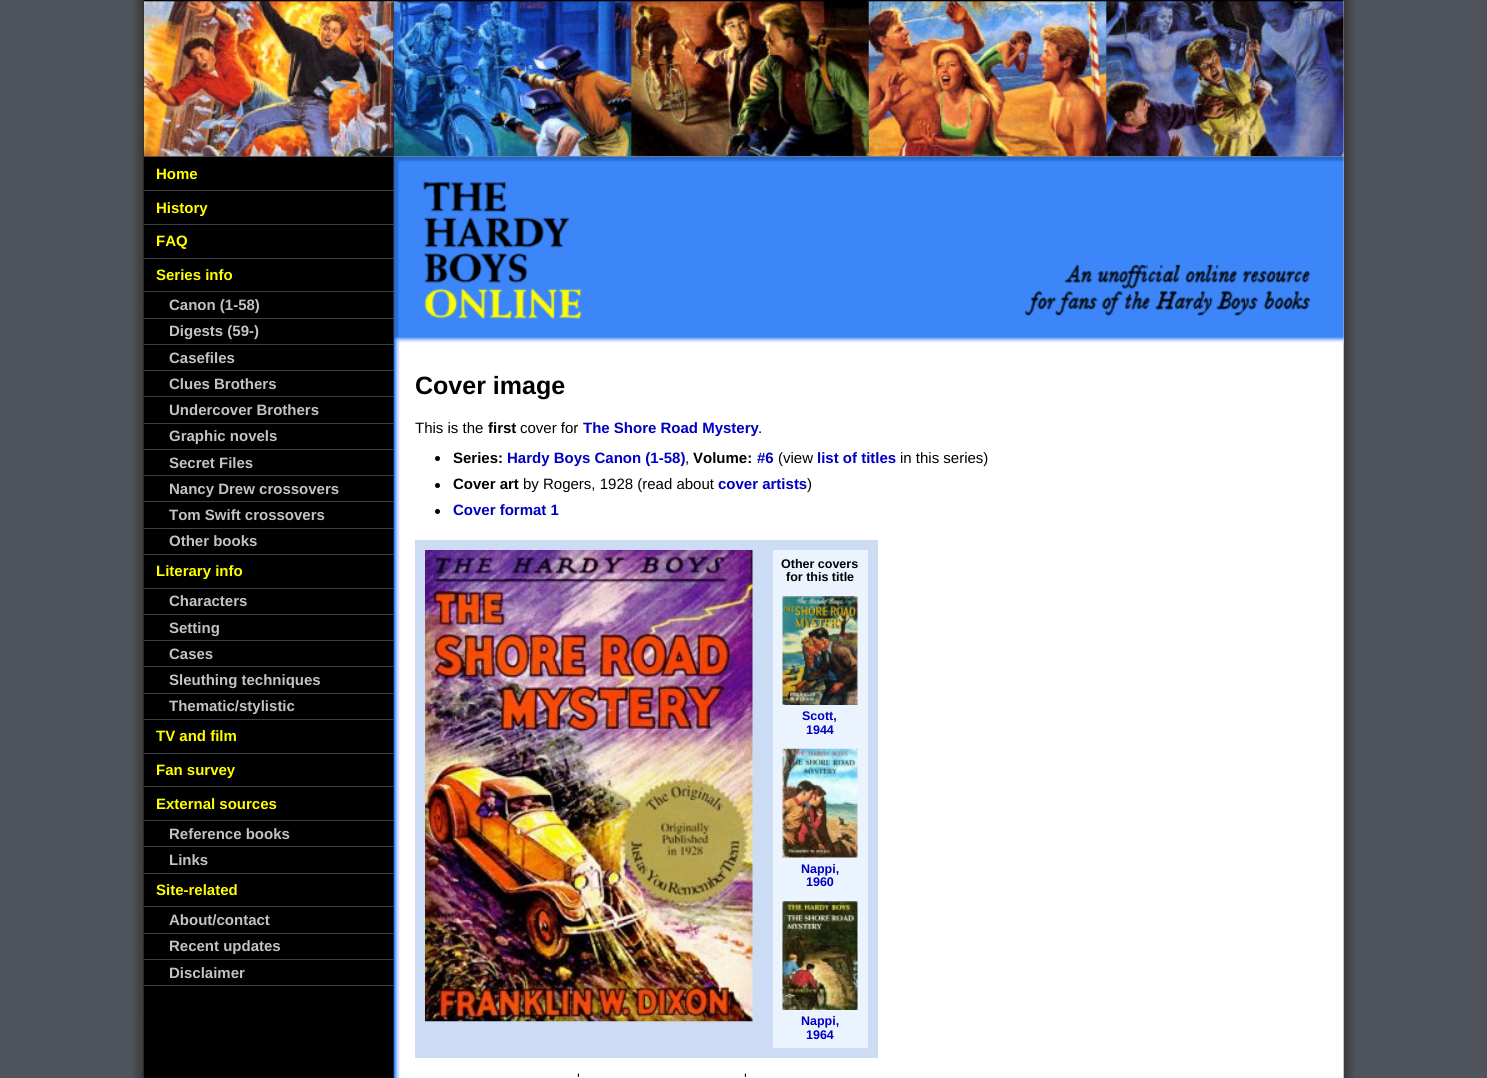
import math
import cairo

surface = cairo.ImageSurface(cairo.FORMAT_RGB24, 1487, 1078)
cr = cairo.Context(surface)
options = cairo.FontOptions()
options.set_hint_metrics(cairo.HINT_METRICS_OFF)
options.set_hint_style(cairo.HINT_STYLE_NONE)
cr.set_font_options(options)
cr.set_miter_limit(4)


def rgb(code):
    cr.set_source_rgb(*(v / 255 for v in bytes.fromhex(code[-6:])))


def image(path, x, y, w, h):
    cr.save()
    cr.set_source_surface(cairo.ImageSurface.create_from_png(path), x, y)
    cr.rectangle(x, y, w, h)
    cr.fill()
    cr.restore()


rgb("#4e535c")
cr.paint()
image("img/1.png", 133, 0, 1221, 1078)
rgb("#404040")
cr.rectangle(144, 156, 250, 1)
cr.fill()
image("img/2.png", 143, 0, 251, 157)
for x, y, w, h, color in [
    (144, 985, 250, 1, "#404040"),
    (144, 190, 250, 1, "#404040"),
    (144, 224, 250, 1, "#404040"),
    (144, 258, 250, 1, "#404040"),
    (144, 291, 250, 1, "#404040"),
    (144, 318, 250, 1, "#404040"),
    (144, 344, 250, 1, "#404040"),
    (144, 370, 250, 1, "#404040"),
    (144, 396, 250, 1, "#404040"),
    (144, 423, 250, 1, "#404040"),
    (144, 449, 250, 1, "#404040"),
    (144, 475, 250, 1, "#404040"),
    (144, 501, 250, 1, "#404040"),
    (144, 528, 250, 1, "#404040"),
    (144, 554, 250, 1, "#404040"),
    (144, 588, 250, 1, "#404040"),
    (144, 614, 250, 1, "#404040"),
    (144, 640, 250, 1, "#404040"),
    (144, 666, 250, 1, "#404040"),
    (144, 693, 250, 1, "#404040"),
    (144, 719, 250, 1, "#404040"),
    (144, 753, 250, 1, "#404040"),
    (144, 786, 250, 1, "#404040"),
    (144, 820, 250, 1, "#404040"),
    (144, 846, 250, 1, "#404040"),
    (144, 873, 250, 1, "#404040"),
    (144, 906, 250, 1, "#404040"),
    (144, 933, 250, 1, "#404040"),
    (144, 959, 250, 1, "#404040"),
]:
    rgb(color)
    cr.rectangle(x, y, w, h)
    cr.fill()
image("img/3.png", 393, 0, 951, 157)
image("img/4.png", 393, 156, 951, 187)
rgb("#000000")
cr.arc(437.5, 458.5, 2.5, 0, 2 * math.pi)
cr.fill()
cr.arc(437.5, 485.5, 2.5, 0, 2 * math.pi)
cr.fill()
cr.arc(437.5, 511.5, 2.5, 0, 2 * math.pi)
cr.fill()
rgb("#ccdcf4")
cr.rectangle(415, 540, 463, 518)
cr.fill()
image("img/5.png", 425, 550, 328, 472)
rgb("#ebf3ff")
cr.rectangle(773, 550, 95, 498)
cr.fill()
image("img/6.png", 782, 596, 76, 109)
image("img/7.png", 782, 748, 76, 110)
image("img/8.png", 782, 901, 76, 109)
cr.select_font_face("Liberation Sans", cairo.FONT_SLANT_NORMAL, cairo.FONT_WEIGHT_BOLD)
cr.set_font_size(15)
rgb("#ffff00")
for x, y, s in [
    (156, 179, "Home"),
    (156, 213, "History"),
    (156, 246, "FAQ"),
    (156, 280, "Series info"),
]:
    cr.move_to(x, y)
    cr.show_text(s)
rgb("#c3c3c3")
for x, y, s in [
    (169, 310, "Canon (1-58)"),
    (169, 336, "Digests (59-)"),
    (169, 363, "Casefiles"),
    (169, 389, "Clues Brothers"),
    (169, 415, "Undercover Brothers"),
    (169, 441, "Graphic novels"),
    (169, 468, "Secret Files"),
    (169, 494, "Nancy Drew crossovers"),
    (169, 520, "Tom Swift crossovers"),
    (169, 546, "Other books"),
]:
    cr.move_to(x, y)
    cr.show_text(s)
rgb("#ffff00")
cr.move_to(156, 576)
cr.show_text("Literary info")
rgb("#c3c3c3")
for x, y, s in [
    (169, 606, "Characters"),
    (169, 633, "Setting"),
    (169, 659, "Cases"),
    (169, 685, "Sleuthing techniques"),
    (169, 711, "Thematic/stylistic"),
]:
    cr.move_to(x, y)
    cr.show_text(s)
rgb("#ffff00")
for x, y, s in [
    (156, 741, "TV and film"),
    (156, 775, "Fan survey"),
    (156, 809, "External sources"),
]:
    cr.move_to(x, y)
    cr.show_text(s)
rgb("#c3c3c3")
cr.move_to(169, 839)
cr.show_text("Reference books")
cr.move_to(169, 865)
cr.show_text("Links")
rgb("#ffff00")
cr.move_to(156, 895)
cr.show_text("Site-related")
rgb("#c3c3c3")
for x, y, s in [
    (169, 925, "About/contact"),
    (169, 951, "Recent updates"),
    (169, 978, "Disclaimer"),
]:
    cr.move_to(x, y)
    cr.show_text(s)
cr.set_font_size(25)
rgb("#000000")
cr.move_to(415, 394)
cr.show_text("Cover image")
cr.select_font_face("Liberation Sans")
cr.set_font_size(15)
cr.move_to(415, 433)
cr.show_text("This is the")
cr.select_font_face("Liberation Sans", cairo.FONT_SLANT_NORMAL, cairo.FONT_WEIGHT_BOLD)
cr.move_to(488, 433)
cr.show_text("first")
cr.select_font_face("Liberation Sans")
cr.move_to(520, 433)
cr.show_text("cover for")
cr.select_font_face("Liberation Sans", cairo.FONT_SLANT_NORMAL, cairo.FONT_WEIGHT_BOLD)
rgb("#0000c0")
cr.move_to(583, 433)
cr.show_text("The Shore Road Mystery")
cr.select_font_face("Liberation Sans")
rgb("#000000")
cr.move_to(758, 433)
cr.show_text(".")
cr.select_font_face("Liberation Sans", cairo.FONT_SLANT_NORMAL, cairo.FONT_WEIGHT_BOLD)
cr.move_to(453, 463)
cr.show_text("Series:")
rgb("#0000c0")
cr.move_to(507, 463)
cr.show_text("Hardy Boys Canon (1-58)")
rgb("#000000")
cr.move_to(693, 463)
cr.show_text("Volume:")
rgb("#0000c0")
cr.move_to(757, 463)
cr.show_text("#6")
cr.select_font_face("Liberation Sans")
rgb("#000000")
cr.move_to(778, 463)
cr.show_text("(view")
cr.select_font_face("Liberation Sans", cairo.FONT_SLANT_NORMAL, cairo.FONT_WEIGHT_BOLD)
rgb("#0000c0")
cr.move_to(817, 463)
cr.show_text("list of titles")
cr.select_font_face("Liberation Sans")
rgb("#000000")
cr.move_to(900, 463)
cr.show_text("in this series)")
cr.move_to(685, 463)
cr.show_text(",")
cr.select_font_face("Liberation Sans", cairo.FONT_SLANT_NORMAL, cairo.FONT_WEIGHT_BOLD)
cr.move_to(453, 489)
cr.show_text("Cover art")
cr.select_font_face("Liberation Sans")
cr.move_to(523, 489)
cr.show_text("by Rogers, 1928 (read about")
cr.select_font_face("Liberation Sans", cairo.FONT_SLANT_NORMAL, cairo.FONT_WEIGHT_BOLD)
rgb("#0000c0")
cr.move_to(718, 489)
cr.show_text("cover artists")
cr.select_font_face("Liberation Sans")
rgb("#000000")
cr.move_to(807, 489)
cr.show_text(")")
cr.select_font_face("Liberation Sans", cairo.FONT_SLANT_NORMAL, cairo.FONT_WEIGHT_BOLD)
rgb("#0000c0")
cr.move_to(453, 515)
cr.show_text("Cover format 1")
cr.set_font_size(12.5)
rgb("#000000")
cr.move_to(781, 568)
cr.show_text("Other covers")
cr.move_to(786, 581)
cr.show_text("for this title")
rgb("#0000c0")
for x, y, s in [
    (802, 720, "Scott,"),
    (806, 734, "1944"),
    (801, 873, "Nappi,"),
    (806, 886, "1960"),
    (801, 1025, "Nappi,"),
    (806, 1039, "1964"),
]:
    cr.move_to(x, y)
    cr.show_text(s)
cr.select_font_face("Liberation Sans")
cr.set_font_size(15)
rgb("#000000")
cr.move_to(577, 1084)
cr.show_text("'")
cr.move_to(744, 1084)
cr.show_text("'")
surface.write_to_png("page.png")
